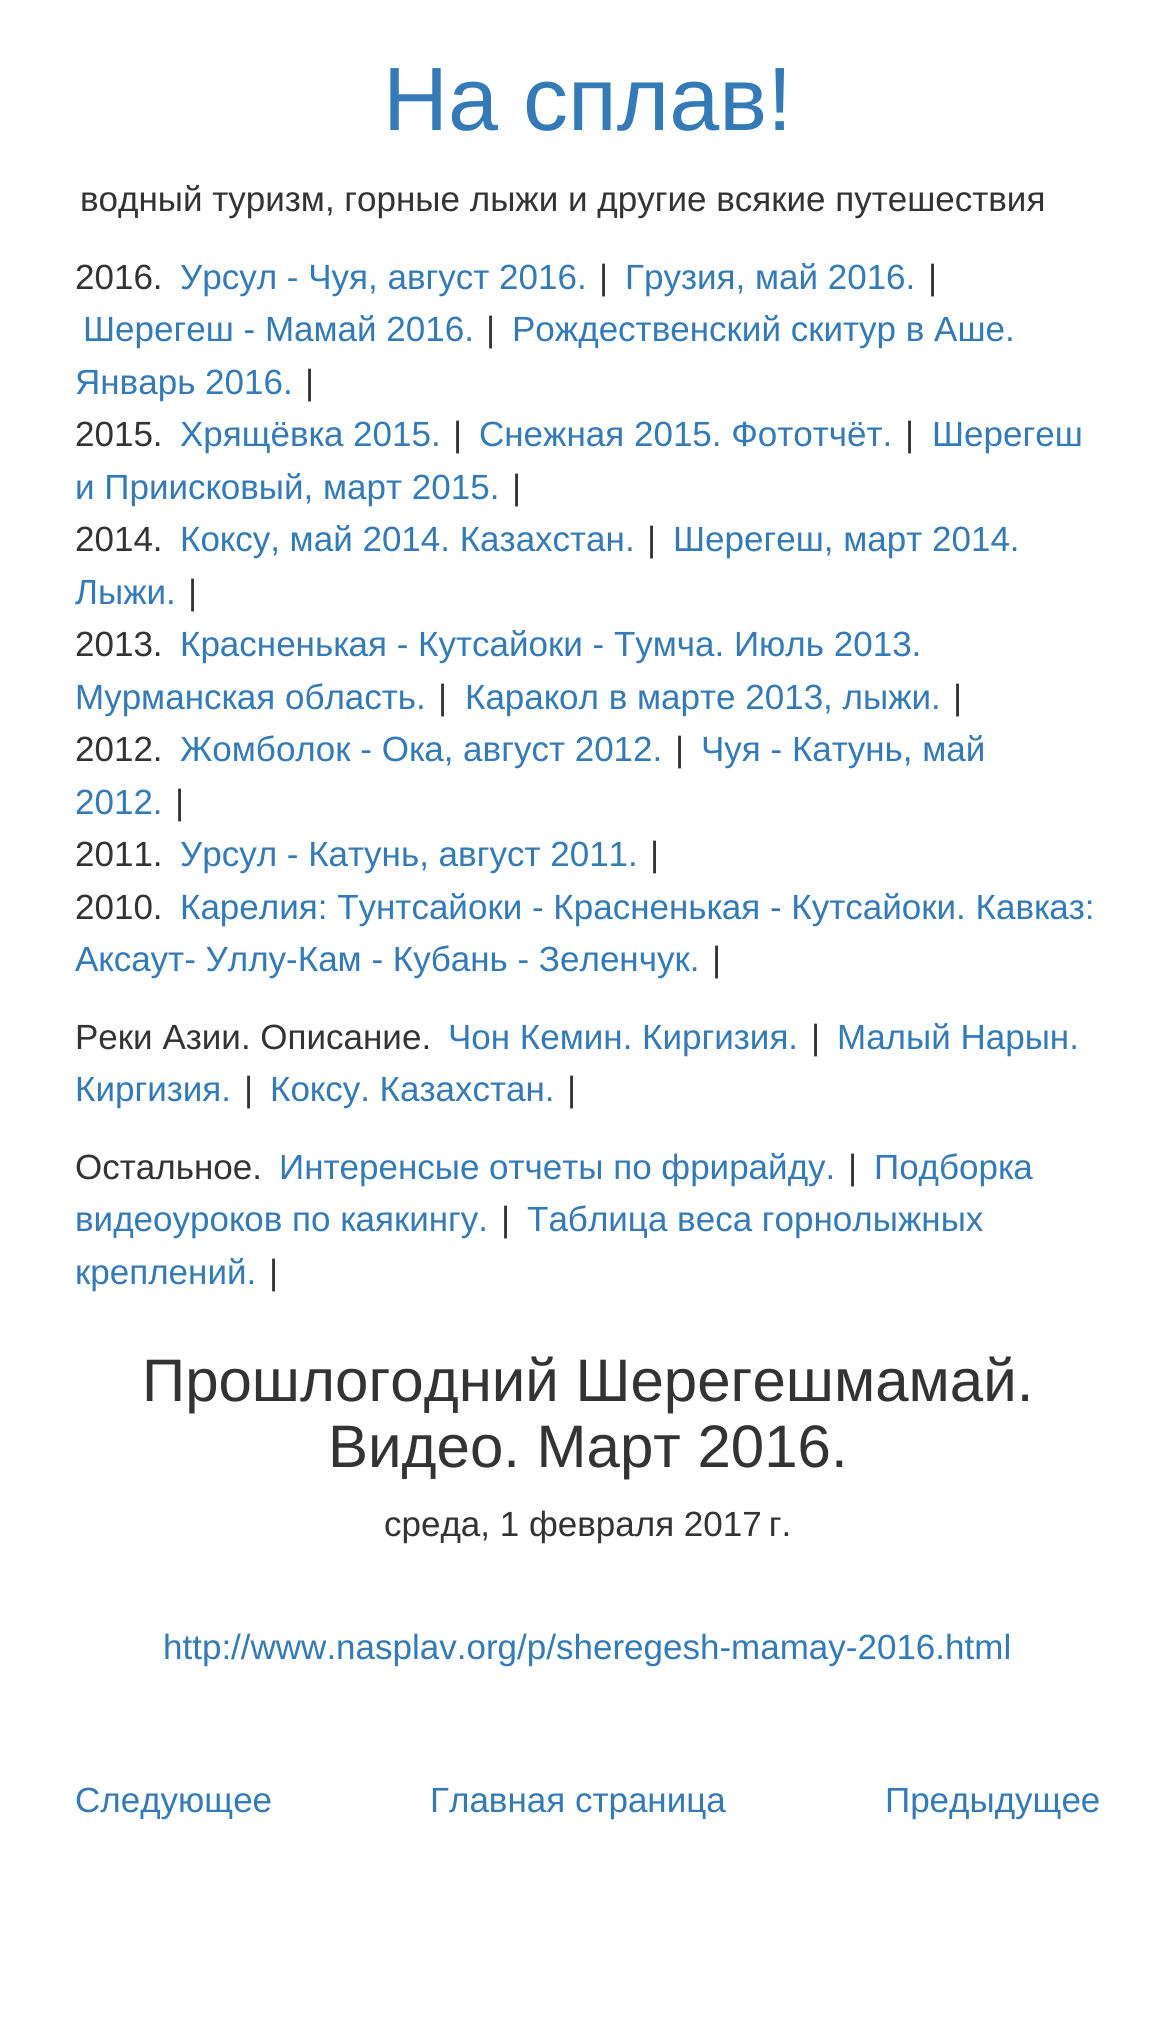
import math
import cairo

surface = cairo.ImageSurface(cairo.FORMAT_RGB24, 1173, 2040)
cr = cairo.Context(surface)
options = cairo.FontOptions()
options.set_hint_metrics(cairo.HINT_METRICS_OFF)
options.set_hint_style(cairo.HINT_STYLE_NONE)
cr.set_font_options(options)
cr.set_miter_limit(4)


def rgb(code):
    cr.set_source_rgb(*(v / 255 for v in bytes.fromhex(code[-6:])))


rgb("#ffffff")
cr.paint()
cr.select_font_face("Liberation Sans")
cr.set_font_size(90)
rgb("#337ab7")
cr.move_to(383, 130)
cr.show_text("На сплав!")
cr.set_font_size(35)
rgb("#333333")
cr.move_to(80, 211)
cr.show_text("водный туризм, горные лыжи и другие всякие путешествия")
cr.move_to(75, 289)
cr.show_text("2016.")
rgb("#337ab7")
cr.move_to(180, 289)
cr.show_text("Урсул - Чуя, август 2016.")
rgb("#333333")
cr.move_to(599, 289)
cr.show_text("|")
rgb("#337ab7")
cr.move_to(625, 289)
cr.show_text("Грузия, май 2016.")
rgb("#333333")
cr.move_to(928, 289)
cr.show_text("|")
rgb("#337ab7")
cr.move_to(83, 341)
cr.show_text("Шерегеш - Мамай 2016.")
rgb("#333333")
cr.move_to(486, 341)
cr.show_text("|")
rgb("#337ab7")
cr.move_to(512, 341)
cr.show_text("Рождественский скитур в Аше.")
cr.move_to(75, 394)
cr.show_text("Январь 2016.")
rgb("#333333")
cr.move_to(305, 394)
cr.show_text("|")
cr.move_to(75, 446)
cr.show_text("2015.")
rgb("#337ab7")
cr.move_to(180, 446)
cr.show_text("Хрящёвка 2015.")
rgb("#333333")
cr.move_to(453, 446)
cr.show_text("|")
rgb("#337ab7")
cr.move_to(479, 446)
cr.show_text("Снежная 2015. Фототчёт.")
rgb("#333333")
cr.move_to(905, 446)
cr.show_text("|")
rgb("#337ab7")
cr.move_to(932, 446)
cr.show_text("Шерегеш")
cr.move_to(75, 499)
cr.show_text("и Приисковый, март 2015.")
rgb("#333333")
cr.move_to(512, 499)
cr.show_text("|")
cr.move_to(75, 551)
cr.show_text("2014.")
rgb("#337ab7")
cr.move_to(180, 551)
cr.show_text("Коксу, май 2014. Казахстан.")
rgb("#333333")
cr.move_to(647, 551)
cr.show_text("|")
rgb("#337ab7")
cr.move_to(673, 551)
cr.show_text("Шерегеш, март 2014.")
cr.move_to(75, 604)
cr.show_text("Лыжи.")
rgb("#333333")
cr.move_to(188, 604)
cr.show_text("|")
cr.move_to(75, 656)
cr.show_text("2013.")
rgb("#337ab7")
cr.move_to(180, 656)
cr.show_text("Красненькая - Кутсайоки - Тумча. Июль 2013.")
cr.move_to(75, 709)
cr.show_text("Мурманская область.")
rgb("#333333")
cr.move_to(438, 709)
cr.show_text("|")
rgb("#337ab7")
cr.move_to(465, 709)
cr.show_text("Каракол в марте 2013, лыжи.")
rgb("#333333")
cr.move_to(953, 709)
cr.show_text("|")
cr.move_to(75, 761)
cr.show_text("2012.")
rgb("#337ab7")
cr.move_to(180, 761)
cr.show_text("Жомболок - Ока, август 2012.")
rgb("#333333")
cr.move_to(675, 761)
cr.show_text("|")
rgb("#337ab7")
cr.move_to(701, 761)
cr.show_text("Чуя - Катунь, май")
cr.move_to(75, 814)
cr.show_text("2012.")
rgb("#333333")
cr.move_to(175, 814)
cr.show_text("|")
cr.move_to(75, 866)
cr.show_text("2011.")
rgb("#337ab7")
cr.move_to(180, 866)
cr.show_text("Урсул - Катунь, август 2011.")
rgb("#333333")
cr.move_to(650, 866)
cr.show_text("|")
cr.move_to(75, 919)
cr.show_text("2010.")
rgb("#337ab7")
cr.move_to(180, 919)
cr.show_text("Карелия: Тунтсайоки - Красненькая - Кутсайоки. Кавказ:")
cr.move_to(75, 971)
cr.show_text("Аксаут- Уллу-Кам - Кубань - Зеленчук.")
rgb("#333333")
cr.move_to(712, 971)
cr.show_text("|")
cr.move_to(75, 1049)
cr.show_text("Реки Азии. Описание.")
rgb("#337ab7")
cr.move_to(448, 1049)
cr.show_text("Чон Кемин. Киргизия.")
rgb("#333333")
cr.move_to(811, 1049)
cr.show_text("|")
rgb("#337ab7")
cr.move_to(837, 1049)
cr.show_text("Малый Нарын.")
cr.move_to(75, 1101)
cr.show_text("Киргизия.")
rgb("#333333")
cr.move_to(244, 1101)
cr.show_text("|")
rgb("#337ab7")
cr.move_to(270, 1101)
cr.show_text("Коксу. Казахстан.")
rgb("#333333")
cr.move_to(567, 1101)
cr.show_text("|")
cr.move_to(75, 1179)
cr.show_text("Остальное.")
rgb("#337ab7")
cr.move_to(279, 1179)
cr.show_text("Интеренсые отчеты по фрирайду.")
rgb("#333333")
cr.move_to(848, 1179)
cr.show_text("|")
rgb("#337ab7")
cr.move_to(874, 1179)
cr.show_text("Подборка")
cr.move_to(75, 1231)
cr.show_text("видеоуроков по каякингу.")
rgb("#333333")
cr.move_to(501, 1231)
cr.show_text("|")
rgb("#337ab7")
cr.move_to(527, 1231)
cr.show_text("Таблица веса горнолыжных")
cr.move_to(75, 1284)
cr.show_text("креплений.")
rgb("#333333")
cr.move_to(269, 1284)
cr.show_text("|")
cr.set_font_size(60)
cr.move_to(142, 1401)
cr.show_text("Прошлогодний Шерегешмамай.")
cr.move_to(328, 1467)
cr.show_text("Видео. Март 2016.")
cr.set_font_size(35)
cr.move_to(384, 1536)
cr.show_text("среда, 1 февраля 2017 г.")
rgb("#337ab7")
for x, y, s in [
    (163, 1659, "http://www.nasplav.org/p/sheregesh-mamay-2016.html"),
    (75, 1812, "Следующее"),
    (430, 1812, "Главная страница"),
    (885, 1812, "Предыдущее"),
]:
    cr.move_to(x, y)
    cr.show_text(s)
surface.write_to_png("page.png")
